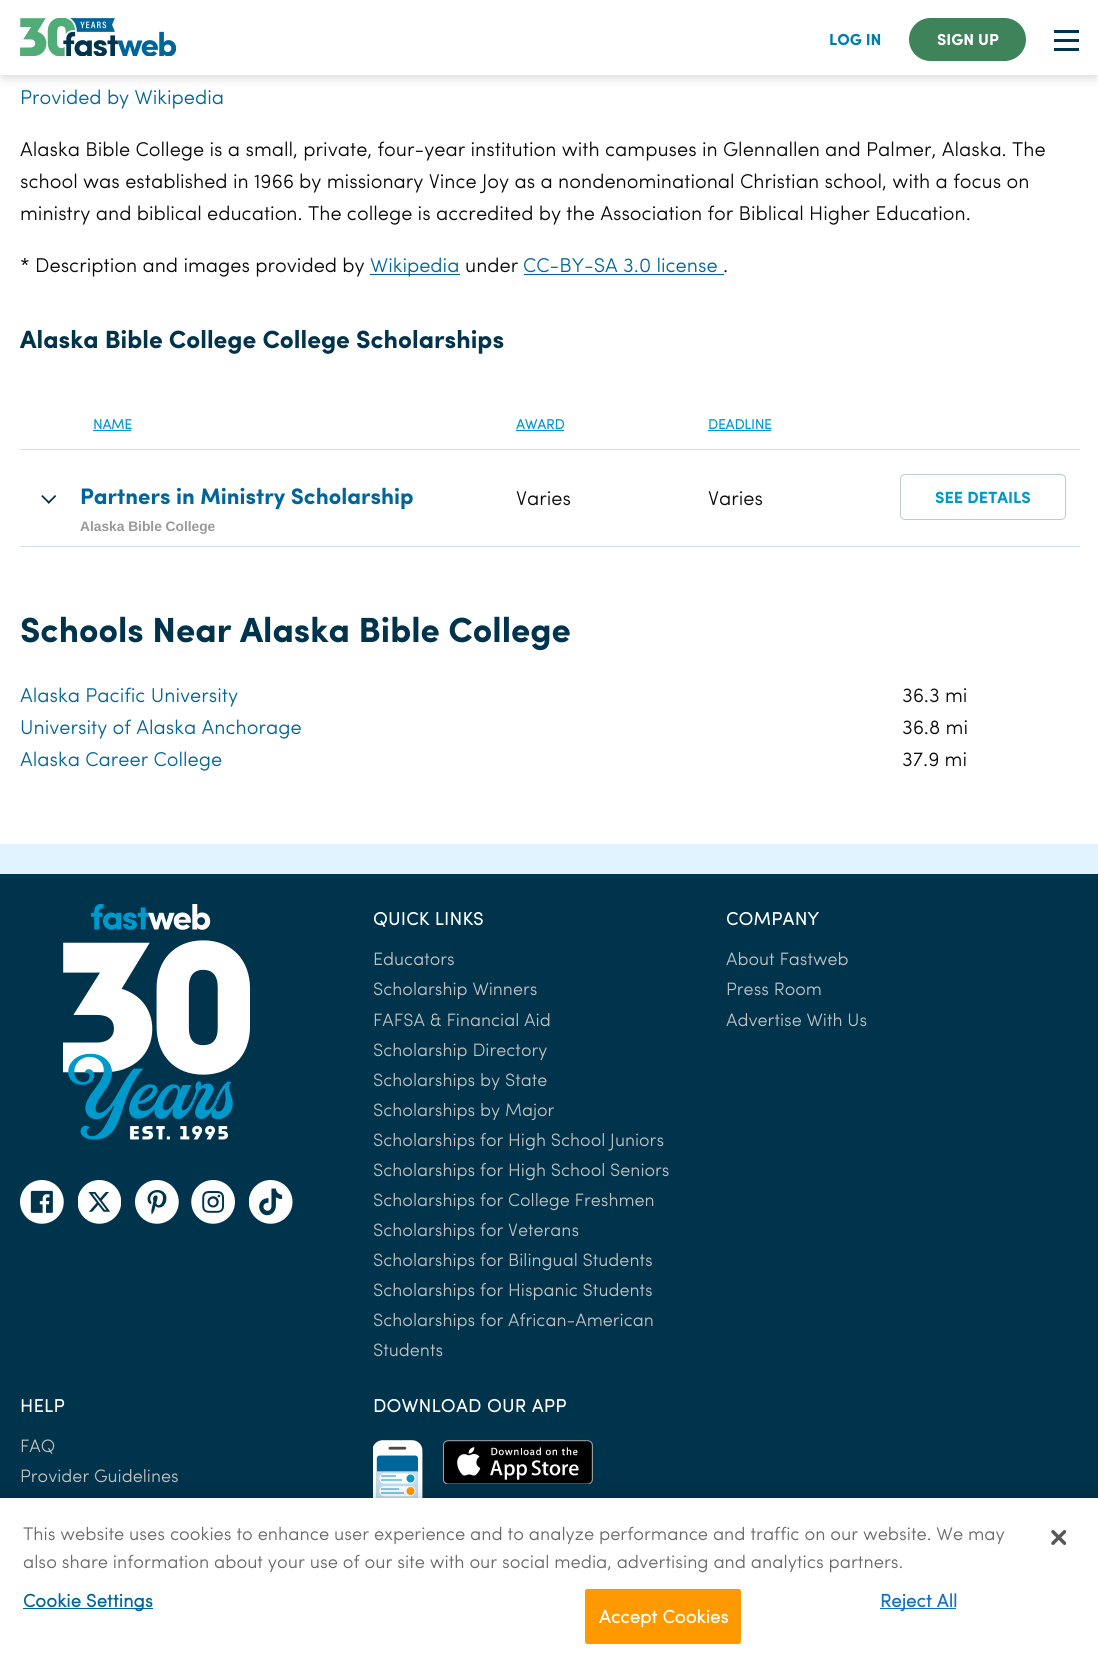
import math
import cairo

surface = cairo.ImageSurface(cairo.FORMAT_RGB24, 1098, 1669)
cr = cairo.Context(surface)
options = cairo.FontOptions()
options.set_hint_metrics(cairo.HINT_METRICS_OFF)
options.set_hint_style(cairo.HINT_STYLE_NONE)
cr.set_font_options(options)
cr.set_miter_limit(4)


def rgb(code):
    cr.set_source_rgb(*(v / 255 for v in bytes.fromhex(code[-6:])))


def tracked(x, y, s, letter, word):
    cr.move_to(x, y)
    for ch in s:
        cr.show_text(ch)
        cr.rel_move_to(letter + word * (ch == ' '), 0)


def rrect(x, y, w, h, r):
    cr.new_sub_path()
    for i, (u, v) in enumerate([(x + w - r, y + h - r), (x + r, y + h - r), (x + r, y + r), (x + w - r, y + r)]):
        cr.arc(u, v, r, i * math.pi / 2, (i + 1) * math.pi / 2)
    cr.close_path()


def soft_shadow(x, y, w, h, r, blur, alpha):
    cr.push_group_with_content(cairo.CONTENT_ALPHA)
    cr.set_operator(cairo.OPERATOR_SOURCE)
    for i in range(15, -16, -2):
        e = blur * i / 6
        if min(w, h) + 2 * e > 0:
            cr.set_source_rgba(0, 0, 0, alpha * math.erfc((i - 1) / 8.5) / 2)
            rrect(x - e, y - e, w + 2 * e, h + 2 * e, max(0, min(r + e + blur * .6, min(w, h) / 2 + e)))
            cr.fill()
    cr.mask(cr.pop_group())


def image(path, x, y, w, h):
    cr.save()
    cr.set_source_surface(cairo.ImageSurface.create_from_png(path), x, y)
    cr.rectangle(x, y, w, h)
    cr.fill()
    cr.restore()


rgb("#e1f3ff")
cr.paint()
rgb("#ffffff")
cr.rectangle(0, 75, 1098, 769)
cr.fill()
rgb("#000000")
soft_shadow(3, 6, 1093, 70, 0, 6, 0.2)
rgb("#ffffff")
cr.rectangle(0, 0, 1098, 75)
cr.fill()
image("img/1.png", 20, 18, 156, 38)
rgb("#3f835b")
rrect(909, 18, 117, 43, 21.5)
cr.fill()
for x, y, w, h, color in [
    (1054, 39, 25, 3, "#00334c"),
    (1054, 30, 25, 3, "#00334c"),
    (1054, 48, 25, 3, "#00334c"),
    (370, 274, 90, 1, "#006699"),
    (524, 274, 200, 1, "#006699"),
    (20, 449, 1060, 1, "#d1e2ed"),
    (93, 430, 38, 1, "#0099cc"),
    (516, 430, 48, 1, "#0099cc"),
    (708, 430, 63, 1, "#0099cc"),
    (20, 546, 1060, 1, "#d1e2ed"),
]:
    rgb(color)
    cr.rectangle(x, y, w, h)
    cr.fill()
image("img/2.png", 41, 495, 15, 9)
rrect(900.5, 474.5, 165, 45, 4.5)
rgb("#bccbd5")
cr.set_line_width(1)
cr.stroke()
rgb("#00334c")
cr.rectangle(0, 874, 1098, 624)
cr.fill()
image("img/3.png", 63, 904, 187, 236)
image("img/4.png", 20, 1180, 44, 44)
image("img/5.png", 78, 1180, 43, 44)
image("img/6.png", 135, 1180, 44, 44)
image("img/7.png", 191, 1180, 44, 44)
image("img/8.png", 249, 1180, 44, 44)
image("img/9.png", 373, 1440, 50, 58)
image("img/10.png", 443, 1440, 150, 44)
rgb("#000000")
soft_shadow(0, 1498, 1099, 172, 0, 11, 0.2)
for x, y, w, h, color in [
    (0, 1498, 1098, 171, "#ffffff"),
    (23, 1608, 130, 1, "#006699"),
    (880, 1608, 76, 1, "#1371c3"),
]:
    rgb(color)
    cr.rectangle(x, y, w, h)
    cr.fill()
rgb("#ff9900")
rrect(585.5, 1589.5, 155, 54, 2)
cr.fill_preserve()
cr.stroke()
image("img/11.png", 1051, 1530, 15, 15)
cr.select_font_face("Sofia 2")
cr.set_font_size(16)
rgb("#007ea8")
cr.move_to(829, 45)
cr.show_text("LOG IN")
rgb("#ffffff")
cr.move_to(937, 45)
cr.show_text("SIGN UP")
cr.select_font_face("Sofia")
cr.set_font_size(20)
rgb("#006699")
cr.move_to(20, 104)
cr.show_text("Provided by Wikipedia")
rgb("#0a0a0a")
for x, y, s in [
    (20, 156, "Alaska Bible College is a small, private, four-year institution with campuses in Glennallen and Palmer, Alaska. The"),
    (20, 188, "school was established in 1966 by missionary Vince Joy as a nondenominational Christian school, with a focus on"),
    (20, 220, "ministry and biblical education. The college is accredited by the Association for Biblical Higher Education."),
    (20, 272, "* Description and images provided by"),
]:
    cr.move_to(x, y)
    cr.show_text(s)
rgb("#006699")
cr.move_to(370, 272)
cr.show_text("Wikipedia")
rgb("#0a0a0a")
cr.move_to(465, 272)
cr.show_text("under")
rgb("#006699")
cr.move_to(523, 272)
cr.show_text("CC-BY-SA 3.0 license")
rgb("#0a0a0a")
cr.move_to(723, 272)
cr.show_text(".")
cr.select_font_face("Sofia 2")
cr.set_font_size(25)
rgb("#00334c")
cr.move_to(20, 348)
cr.show_text("Alaska Bible College College Scholarships")
cr.select_font_face("Sofia", cairo.FONT_SLANT_NORMAL, cairo.FONT_WEIGHT_BOLD)
cr.set_font_size(13.75)
rgb("#0099cc")
for x, y, s in [
    (93, 429, "NAME"),
    (516, 429, "AWARD"),
    (708, 429, "DEADLINE"),
]:
    cr.move_to(x, y)
    cr.show_text(s)
cr.select_font_face("Sofia 2")
cr.set_font_size(22.5)
rgb("#006699")
cr.move_to(80, 504)
cr.show_text("Partners in Ministry Scholarship")
cr.select_font_face("Liberation Sans", cairo.FONT_SLANT_NORMAL, cairo.FONT_WEIGHT_BOLD)
cr.set_font_size(13.75)
rgb("#999999")
cr.move_to(80, 531)
cr.show_text("Alaska Bible College")
cr.select_font_face("Sofia")
cr.set_font_size(20)
rgb("#0a0a0a")
cr.move_to(516, 505)
cr.show_text("Varies")
cr.move_to(708, 505)
cr.show_text("Varies")
cr.select_font_face("Sofia 2")
cr.set_font_size(16.25)
rgb("#0099cc")
cr.move_to(935, 503)
cr.show_text("SEE DETAILS")
cr.set_font_size(35)
rgb("#00334c")
cr.move_to(20, 642)
cr.show_text("Schools Near Alaska Bible College")
cr.select_font_face("Sofia")
cr.set_font_size(20)
rgb("#006699")
cr.move_to(20, 702)
cr.show_text("Alaska Pacific University")
rgb("#0a0a0a")
cr.move_to(902, 702)
cr.show_text("36.3 mi")
rgb("#006699")
cr.move_to(20, 734)
cr.show_text("University of Alaska Anchorage")
rgb("#0a0a0a")
cr.move_to(902, 734)
cr.show_text("36.8 mi")
rgb("#006699")
cr.move_to(20, 766)
cr.show_text("Alaska Career College")
rgb("#0a0a0a")
cr.move_to(902, 766)
cr.show_text("37.9 mi")
cr.select_font_face("Sofia", cairo.FONT_SLANT_NORMAL, cairo.FONT_WEIGHT_BOLD)
cr.set_font_size(18)
rgb("#ffffff")
tracked(373, 925, "QUICK LINKS", 0.6, 0)
cr.select_font_face("Sofia")
rgb("#c1c1c1")
for x, y, s in [
    (373, 965, "Educators"),
    (373, 995, "Scholarship Winners"),
    (373, 1026, "FAFSA & Financial Aid"),
    (373, 1056, "Scholarship Directory"),
    (373, 1086, "Scholarships by State"),
    (373, 1116, "Scholarships by Major"),
    (373, 1146, "Scholarships for High School Juniors"),
    (373, 1176, "Scholarships for High School Seniors"),
    (373, 1206, "Scholarships for College Freshmen"),
    (373, 1236, "Scholarships for Veterans"),
    (373, 1266, "Scholarships for Bilingual Students"),
    (373, 1296, "Scholarships for Hispanic Students"),
    (373, 1326, "Scholarships for African-American"),
    (373, 1356, "Students"),
]:
    cr.move_to(x, y)
    cr.show_text(s)
cr.select_font_face("Sofia", cairo.FONT_SLANT_NORMAL, cairo.FONT_WEIGHT_BOLD)
rgb("#ffffff")
tracked(726, 925, "COMPANY", 0.6, 0)
cr.select_font_face("Sofia")
rgb("#c1c1c1")
for x, y, s in [
    (726, 965, "About Fastweb"),
    (726, 995, "Press Room"),
    (726, 1026, "Advertise With Us"),
]:
    cr.move_to(x, y)
    cr.show_text(s)
cr.select_font_face("Sofia", cairo.FONT_SLANT_NORMAL, cairo.FONT_WEIGHT_BOLD)
rgb("#ffffff")
tracked(20, 1412, "HELP", 0.6, 0)
cr.select_font_face("Sofia")
rgb("#c1c1c1")
cr.move_to(20, 1452)
cr.show_text("FAQ")
cr.move_to(20, 1482)
cr.show_text("Provider Guidelines")
cr.select_font_face("Sofia", cairo.FONT_SLANT_NORMAL, cairo.FONT_WEIGHT_BOLD)
rgb("#ffffff")
tracked(373, 1412, "DOWNLOAD OUR APP", 0.6, 0)
cr.select_font_face("Sofia")
cr.set_font_size(18.3)
rgb("#696969")
cr.move_to(23, 1540)
cr.show_text("This website uses cookies to enhance user experience and to analyze performance and traffic on our website. We may")
cr.move_to(23, 1568)
cr.show_text("also share information about your use of our site with our social media, advertising and analytics partners.")
cr.select_font_face("Sofia", cairo.FONT_SLANT_NORMAL, cairo.FONT_WEIGHT_BOLD)
rgb("#006699")
tracked(23, 1607, "Cookie Settings", 0.2, 0)
rgb("#1371c3")
tracked(880, 1607, "Reject All", 0.2, 0)
rgb("#ffffff")
tracked(599, 1623, "Accept Cookies", 0.2, 0)
surface.write_to_png("page.png")
